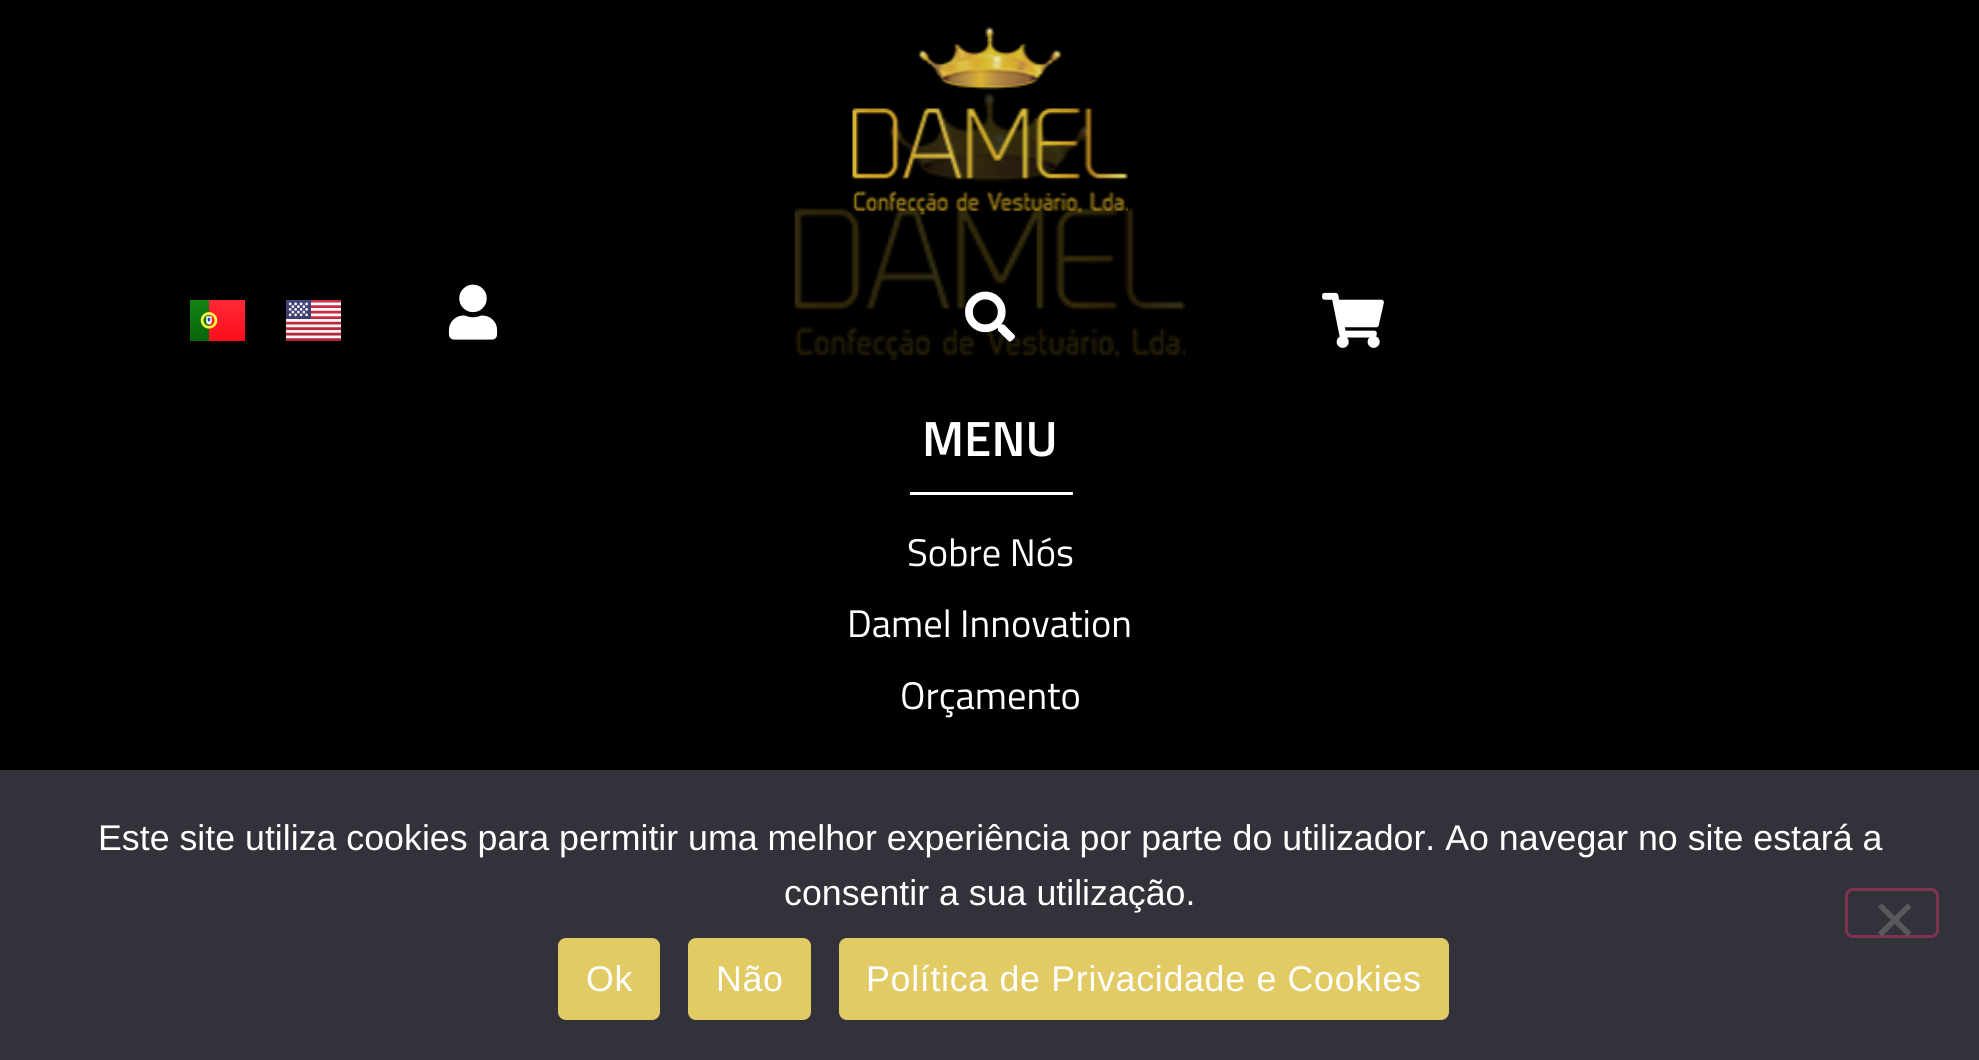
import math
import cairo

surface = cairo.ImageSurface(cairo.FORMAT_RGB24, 1979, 1060)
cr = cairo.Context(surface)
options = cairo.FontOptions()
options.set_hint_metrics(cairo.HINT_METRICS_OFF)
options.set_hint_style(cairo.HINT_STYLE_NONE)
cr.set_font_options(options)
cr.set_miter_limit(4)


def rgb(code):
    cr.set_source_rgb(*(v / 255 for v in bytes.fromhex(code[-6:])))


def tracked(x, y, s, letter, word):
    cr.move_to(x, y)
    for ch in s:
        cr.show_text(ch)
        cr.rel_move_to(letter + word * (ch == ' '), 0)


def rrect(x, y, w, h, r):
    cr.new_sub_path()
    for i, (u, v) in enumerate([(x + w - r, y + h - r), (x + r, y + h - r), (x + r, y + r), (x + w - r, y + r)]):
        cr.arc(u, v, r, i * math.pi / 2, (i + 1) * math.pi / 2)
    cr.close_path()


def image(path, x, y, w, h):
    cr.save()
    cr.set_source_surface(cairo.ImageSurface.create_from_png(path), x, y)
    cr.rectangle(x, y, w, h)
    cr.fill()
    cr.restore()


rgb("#000000")
cr.paint()
image("img/7.png", 794, 93, 392, 268)
image("img/1.png", 852, 27, 276, 188)
image("img/2.png", 190, 300, 55, 41)
image("img/3.png", 286, 300, 55, 41)
image("img/4.png", 448, 284, 50, 56)
image("img/5.png", 965, 291, 50, 51)
image("img/6.png", 1322, 292, 62, 56)
rgb("#ffffff")
cr.rectangle(910, 492, 163, 3)
cr.fill()
rgb("#32323a")
cr.rectangle(0, 770, 1979, 290)
cr.fill()
rrect(1846.5, 889.5, 91, 47, 6.5)
rgb("#7f3350")
cr.set_line_width(3)
cr.stroke()
rgb("#59595d")
cr.new_path()
cr.move_to(1907.5, 903.5)
cr.line_to(1911.5, 907)
cr.line_to(1882, 936.5)
cr.line_to(1878, 932.5)
cr.close_path()
cr.fill()
cr.new_path()
cr.move_to(1878, 907)
cr.line_to(1882, 903.5)
cr.line_to(1911.5, 932.5)
cr.line_to(1907.5, 936.5)
cr.close_path()
cr.fill()
rgb("#e2cb65")
rrect(558, 938, 102, 82, 8)
cr.fill()
rrect(688, 938, 123, 82, 8)
cr.fill()
rrect(839, 938, 610, 82, 8)
cr.fill()
cr.select_font_face("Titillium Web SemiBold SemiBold")
cr.set_font_size(49.5)
rgb("#ffffff")
cr.move_to(922, 456)
cr.show_text("MENU")
cr.select_font_face("Titillium Web")
cr.set_font_size(38.5)
for x, y, s in [
    (907, 566, "Sobre Nós"),
    (847, 637, "Damel Innovation"),
    (900, 709, "Orçamento"),
]:
    cr.move_to(x, y)
    cr.show_text(s)
cr.select_font_face("Liberation Sans")
cr.set_font_size(35.75)
cr.move_to(98, 850)
cr.show_text("Este site utiliza cookies para permitir uma melhor experiência por parte do utilizador. Ao navegar no site estará a")
cr.move_to(784, 905)
cr.show_text("consentir a sua utilização.")
for x, y, s in [
    (586, 991, "Ok"),
    (716, 991, "Não"),
    (866, 991, "Política de Privacidade e Cookies"),
]:
    tracked(x, y, s, 0.7, 0)
surface.write_to_png("page.png")
